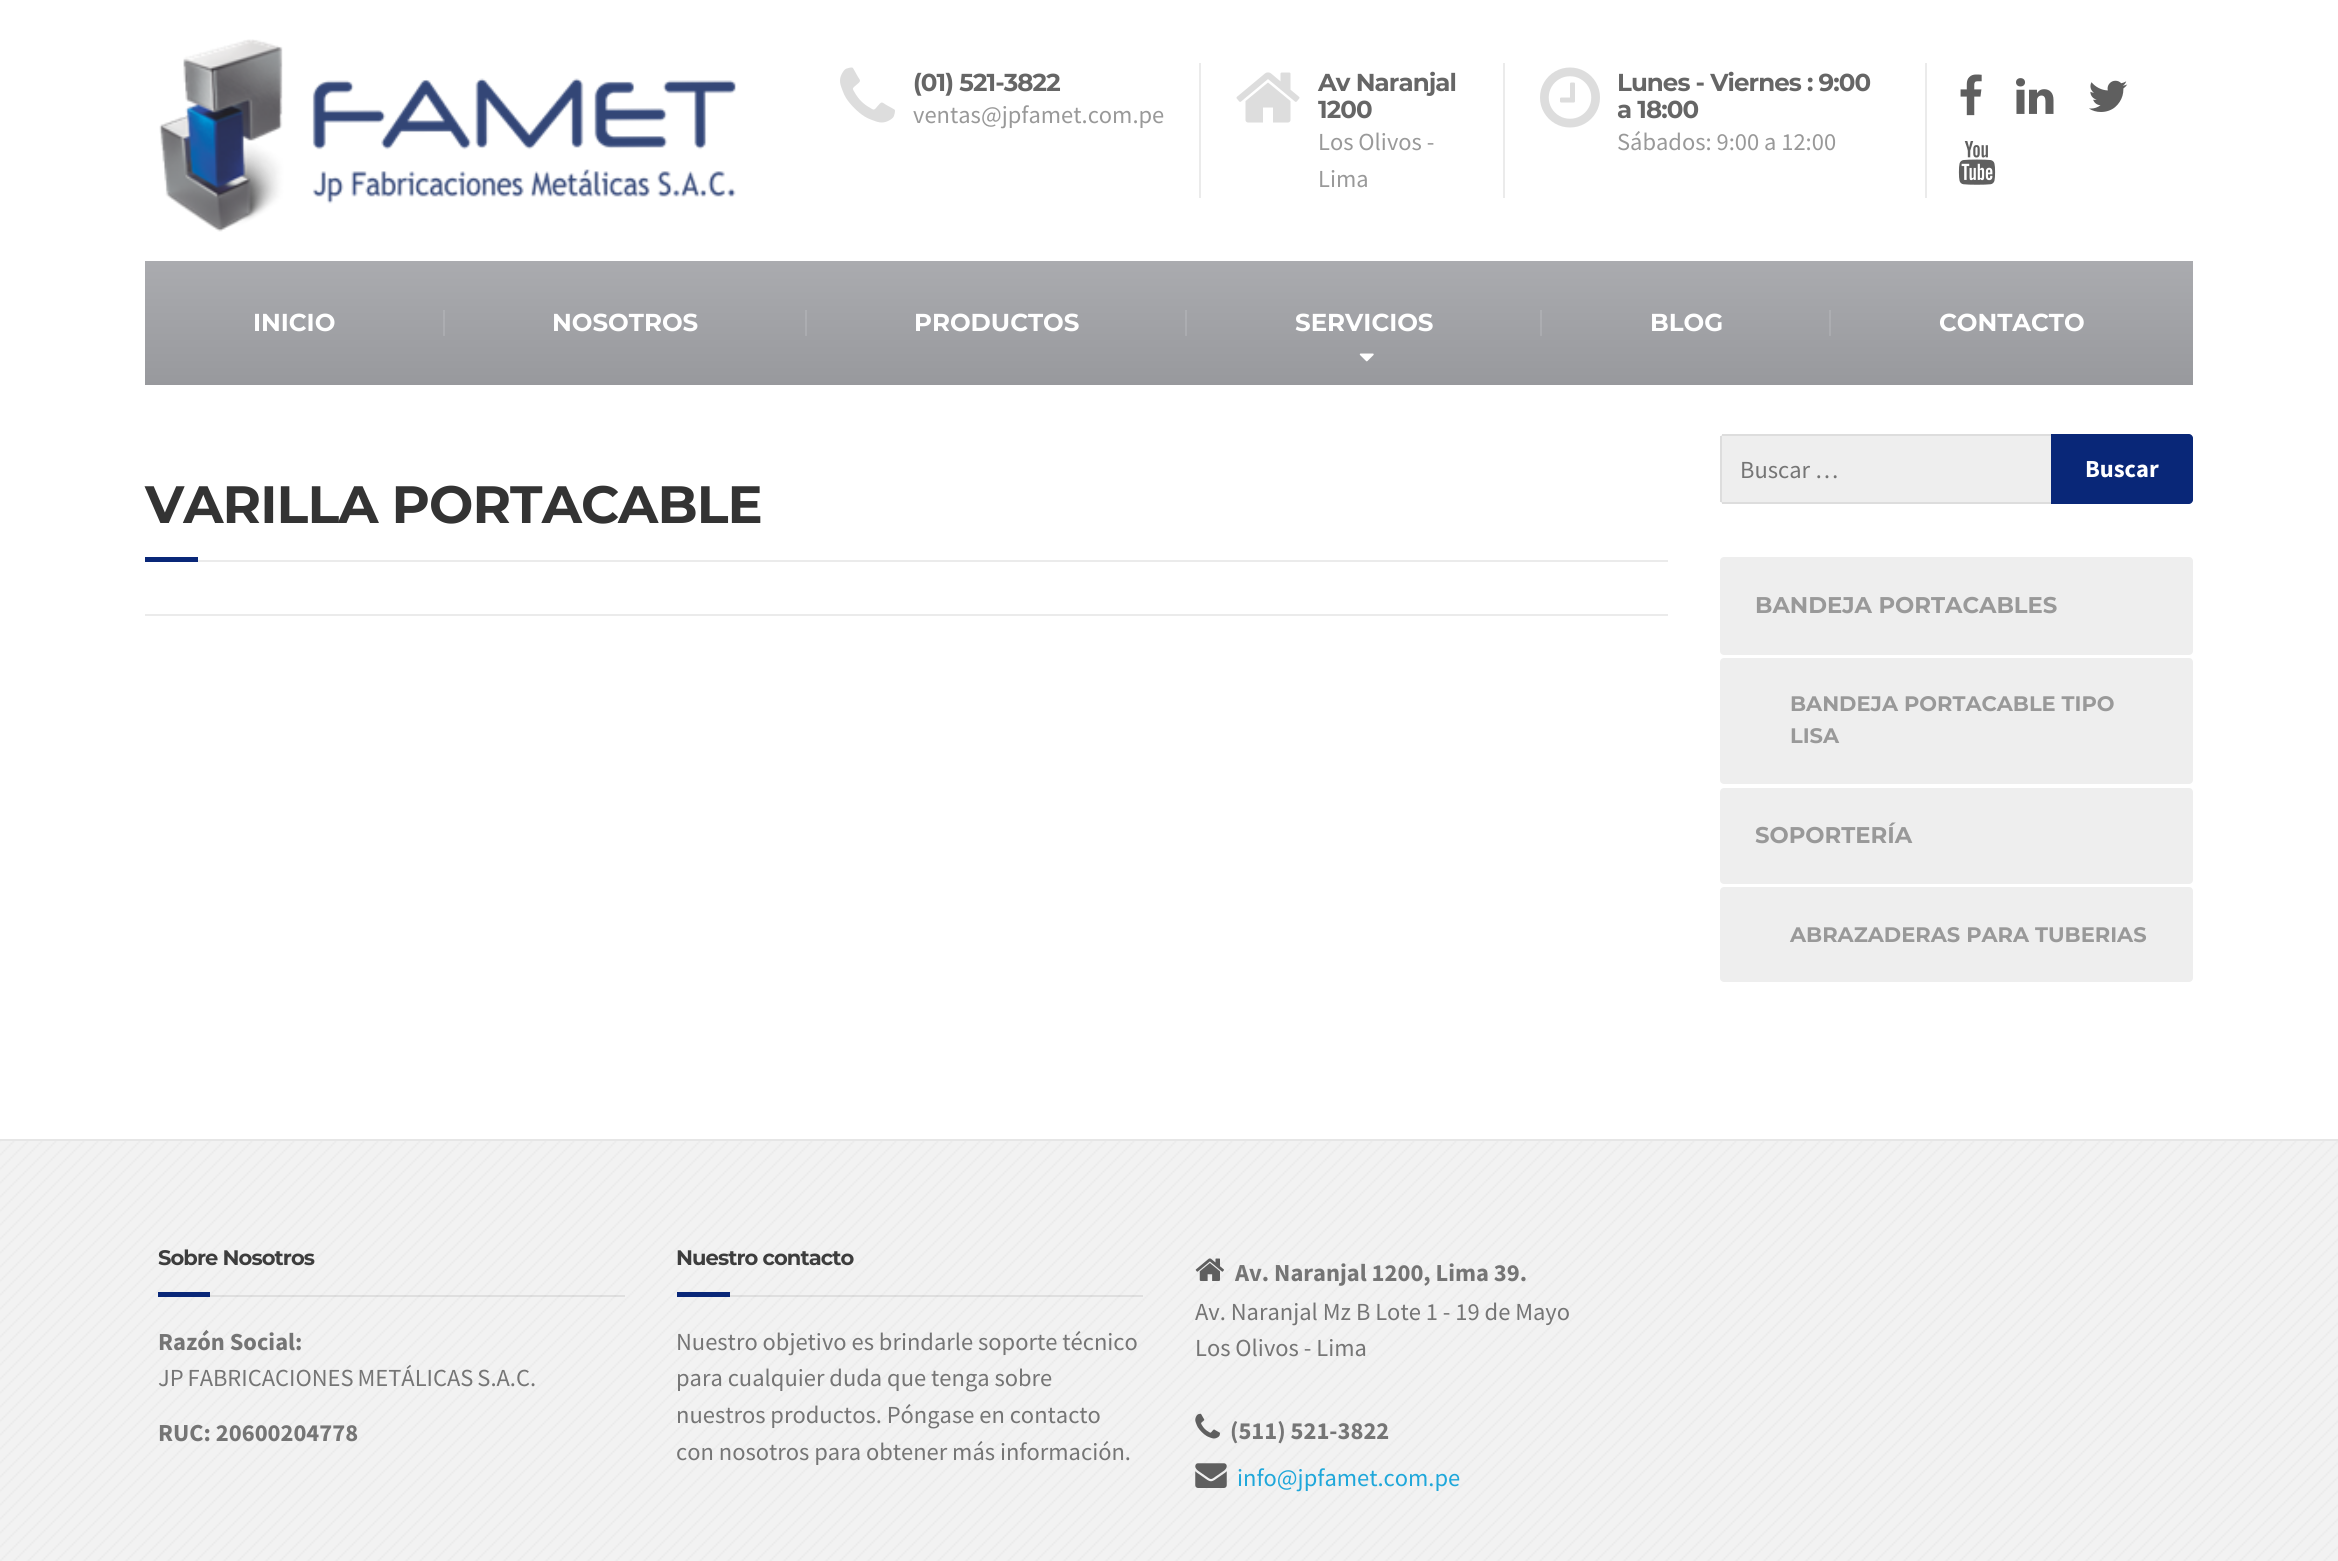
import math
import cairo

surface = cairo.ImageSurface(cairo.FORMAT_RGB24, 2338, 1561)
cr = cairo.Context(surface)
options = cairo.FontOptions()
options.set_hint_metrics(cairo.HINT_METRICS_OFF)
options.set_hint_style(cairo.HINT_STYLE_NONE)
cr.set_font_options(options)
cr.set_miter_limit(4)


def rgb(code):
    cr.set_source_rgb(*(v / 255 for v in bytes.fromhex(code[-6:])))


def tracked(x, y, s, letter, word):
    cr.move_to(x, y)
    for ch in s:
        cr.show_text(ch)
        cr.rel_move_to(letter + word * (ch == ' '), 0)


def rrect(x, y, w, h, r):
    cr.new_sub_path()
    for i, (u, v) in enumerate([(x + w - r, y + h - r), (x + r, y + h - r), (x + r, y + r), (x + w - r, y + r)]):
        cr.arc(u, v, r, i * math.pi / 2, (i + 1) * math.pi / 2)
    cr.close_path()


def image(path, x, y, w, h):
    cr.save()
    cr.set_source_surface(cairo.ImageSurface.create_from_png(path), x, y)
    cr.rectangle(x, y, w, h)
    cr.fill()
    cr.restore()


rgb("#ffffff")
cr.paint()
image("img/1.png", 159, 39, 577, 193)
rgb("#ebebeb")
cr.rectangle(1199, 63, 2, 135)
cr.fill()
image("img/2.png", 840, 67, 55, 56)
cr.rectangle(1503, 63, 2, 135)
cr.fill()
image("img/3.png", 1236, 72, 64, 51)
cr.rectangle(1925, 63, 2, 135)
cr.fill()
image("img/4.png", 1540, 67, 60, 61)
image("img/5.png", 1960, 74, 22, 42)
image("img/6.png", 2016, 78, 38, 36)
image("img/7.png", 2089, 80, 39, 32)
image("img/8.png", 1958, 141, 38, 44)
gradient = cairo.LinearGradient(1169, 261, 1169, 385)
gradient.add_color_stop_rgba(0, 0.667, 0.671, 0.686, 1)
gradient.add_color_stop_rgba(1, 0.596, 0.6, 0.616, 1)
cr.set_source(gradient)
cr.rectangle(145, 261, 2048, 124)
cr.fill()
gradient = cairo.LinearGradient(1169, 261, 1169, 385)
gradient.add_color_stop_rgba(0, 0.706, 0.71, 0.725, 1)
gradient.add_color_stop_rgba(1, 0.643, 0.647, 0.663, 1)
cr.set_source(gradient)
cr.rectangle(1829, 310, 2, 26)
cr.fill()
cr.rectangle(1540, 310, 2, 26)
cr.fill()
cr.rectangle(1185, 310, 2, 26)
cr.fill()
cr.rectangle(805, 310, 2, 26)
cr.fill()
cr.rectangle(443, 310, 2, 26)
cr.fill()
image("img/9.png", 1359, 353, 15, 9)
for x, y, w, h, color in [
    (145, 614, 1523, 2, "#ebebeb"),
    (198, 560, 1470, 2, "#ebebeb"),
    (145, 557, 53, 5, "#092778"),
]:
    rgb(color)
    cr.rectangle(x, y, w, h)
    cr.fill()
rgb("#eeeeee")
cr.new_path()
cr.move_to(1724, 434)
cr.line_to(2051, 434)
cr.line_to(2051, 504)
cr.line_to(1724, 504)
cr.curve_to(1722, 504, 1720, 502, 1720, 500)
cr.line_to(1720, 438)
cr.curve_to(1720, 436, 1722, 434, 1724, 434)
cr.close_path()
cr.fill()
for x, y, w, h, color in [
    (1722, 434, 329, 2, "#dddddd"),
    (1722, 502, 329, 2, "#dddddd"),
    (1720, 436, 2, 66, "#dddddd"),
]:
    rgb(color)
    cr.rectangle(x, y, w, h)
    cr.fill()
rgb("#092778")
cr.new_path()
cr.move_to(2051, 434)
cr.line_to(2189, 434)
cr.curve_to(2191, 434, 2193, 436, 2193, 438)
cr.line_to(2193, 500)
cr.curve_to(2193, 502, 2191, 504, 2189, 504)
cr.line_to(2051, 504)
cr.close_path()
cr.fill()
rgb("#eeeeee")
rrect(1720, 557, 473, 98, 4)
cr.fill()
rrect(1720, 658, 473, 126, 4)
cr.fill()
rrect(1720, 788, 473, 96, 4)
cr.fill()
rrect(1720, 887, 473, 95, 4)
cr.fill()
rgb("#f2f2f2")
cr.rectangle(0, 1141, 2338, 420)
cr.fill()
image("img/10.png", 0, 1141, 2338, 420)
rgb("#e6e6e6")
cr.rectangle(0, 1139, 2338, 2)
cr.fill()
cr.set_source_rgba(0, 0, 0, 0.08)
cr.rectangle(210, 1295, 415, 2)
cr.fill()
rgb("#092778")
cr.rectangle(158, 1292, 52, 5)
cr.fill()
cr.set_source_rgba(0, 0, 0, 0.08)
cr.rectangle(730, 1295, 413, 2)
cr.fill()
rgb("#092778")
cr.rectangle(677, 1292, 53, 5)
cr.fill()
image("img/11.png", 1195, 1258, 29, 23)
image("img/12.png", 1195, 1413, 25, 26)
image("img/13.png", 1195, 1463, 32, 25)
cr.select_font_face("Montserrat Thin")
cr.set_font_size(24.5)
rgb("#666666")
tracked(913, 91, "(01) 521-3822", -0.9, 0)
cr.select_font_face("Source Sans Pro")
rgb("#999999")
cr.move_to(913, 123)
cr.show_text("ventas@jpfamet.com.pe")
cr.select_font_face("Montserrat Thin")
rgb("#666666")
tracked(1318, 91, "Av Naranjal", -0.9, 0)
tracked(1318, 118, "1200", -0.9, 0)
cr.select_font_face("Source Sans Pro")
rgb("#999999")
cr.move_to(1318, 150)
cr.show_text("Los Olivos -")
cr.move_to(1318, 187)
cr.show_text("Lima")
cr.select_font_face("Montserrat Thin")
rgb("#666666")
tracked(1617, 91, "Lunes - Viernes : 9:00", -0.9, 0)
tracked(1617, 118, "a 18:00", -0.9, 0)
cr.select_font_face("Source Sans Pro")
rgb("#999999")
cr.move_to(1617, 150)
cr.show_text("Sábados: 9:00 a 12:00")
cr.select_font_face("Montserrat Thin")
rgb("#ffffff")
for x, y, s in [
    (253, 331, "INICIO"),
    (552, 331, "NOSOTROS"),
    (914, 331, "PRODUCTOS"),
    (1295, 331, "SERVICIOS"),
    (1650, 331, "BLOG"),
    (1939, 331, "CONTACTO"),
]:
    cr.move_to(x, y)
    cr.show_text(s)
cr.set_font_size(52.5)
rgb("#333333")
tracked(145, 523, "VARILLA PORTACABLE", -0.9, 0)
cr.select_font_face("Source Sans Pro")
cr.set_font_size(24.5)
rgb("#757575")
cr.move_to(1740, 478)
cr.show_text("Buscar …")
cr.select_font_face("Source Sans Pro", cairo.FONT_SLANT_NORMAL, cairo.FONT_WEIGHT_BOLD)
rgb("#ffffff")
cr.move_to(2085, 477)
cr.show_text("Buscar")
cr.select_font_face("Montserrat Thin")
cr.set_font_size(22.75)
rgb("#999999")
cr.move_to(1755, 613)
cr.show_text("BANDEJA PORTACABLES")
cr.set_font_size(21)
cr.move_to(1790, 711)
cr.show_text("BANDEJA PORTACABLE TIPO")
cr.move_to(1790, 743)
cr.show_text("LISA")
cr.set_font_size(22.75)
cr.move_to(1755, 843)
cr.show_text("SOPORTERÍA")
cr.set_font_size(21)
cr.move_to(1790, 942)
cr.show_text("ABRAZADERAS PARA TUBERIAS")
rgb("#3d3d3d")
tracked(158, 1265, "Sobre Nosotros", -0.9, 0)
cr.select_font_face("Source Sans Pro", cairo.FONT_SLANT_NORMAL, cairo.FONT_WEIGHT_BOLD)
cr.set_font_size(24.5)
rgb("#757575")
cr.move_to(158, 1350)
cr.show_text("Razón Social:")
cr.select_font_face("Source Sans Pro")
tracked(158, 1386, "JP FABRICACIONES METÁLICAS S.A.C.", 0, -1)
cr.select_font_face("Source Sans Pro", cairo.FONT_SLANT_NORMAL, cairo.FONT_WEIGHT_BOLD)
cr.move_to(158, 1441)
cr.show_text("RUC: 20600204778")
cr.select_font_face("Montserrat Thin")
cr.set_font_size(21)
rgb("#3d3d3d")
tracked(676, 1265, "Nuestro contacto", -0.9, 0)
cr.select_font_face("Source Sans Pro")
cr.set_font_size(24.5)
rgb("#757575")
for x, y, s in [
    (676, 1350, "Nuestro objetivo es brindarle soporte técnico"),
    (676, 1386, "para cualquier duda que tenga sobre"),
    (676, 1423, "nuestros productos. Póngase en contacto"),
    (676, 1460, "con nosotros para obtener más información."),
]:
    cr.move_to(x, y)
    cr.show_text(s)
cr.select_font_face("Source Sans Pro", cairo.FONT_SLANT_NORMAL, cairo.FONT_WEIGHT_BOLD)
cr.move_to(1235, 1281)
cr.show_text("Av. Naranjal 1200, Lima 39.")
cr.select_font_face("Source Sans Pro")
cr.move_to(1195, 1320)
cr.show_text("Av. Naranjal Mz B Lote 1 - 19 de Mayo")
cr.move_to(1195, 1356)
cr.show_text("Los Olivos - Lima")
cr.select_font_face("Source Sans Pro", cairo.FONT_SLANT_NORMAL, cairo.FONT_WEIGHT_BOLD)
cr.move_to(1230, 1439)
cr.show_text("(511) 521-3822")
cr.select_font_face("Source Sans Pro")
rgb("#1fa7da")
cr.move_to(1237, 1486)
cr.show_text("info@jpfamet.com.pe")
surface.write_to_png("page.png")
